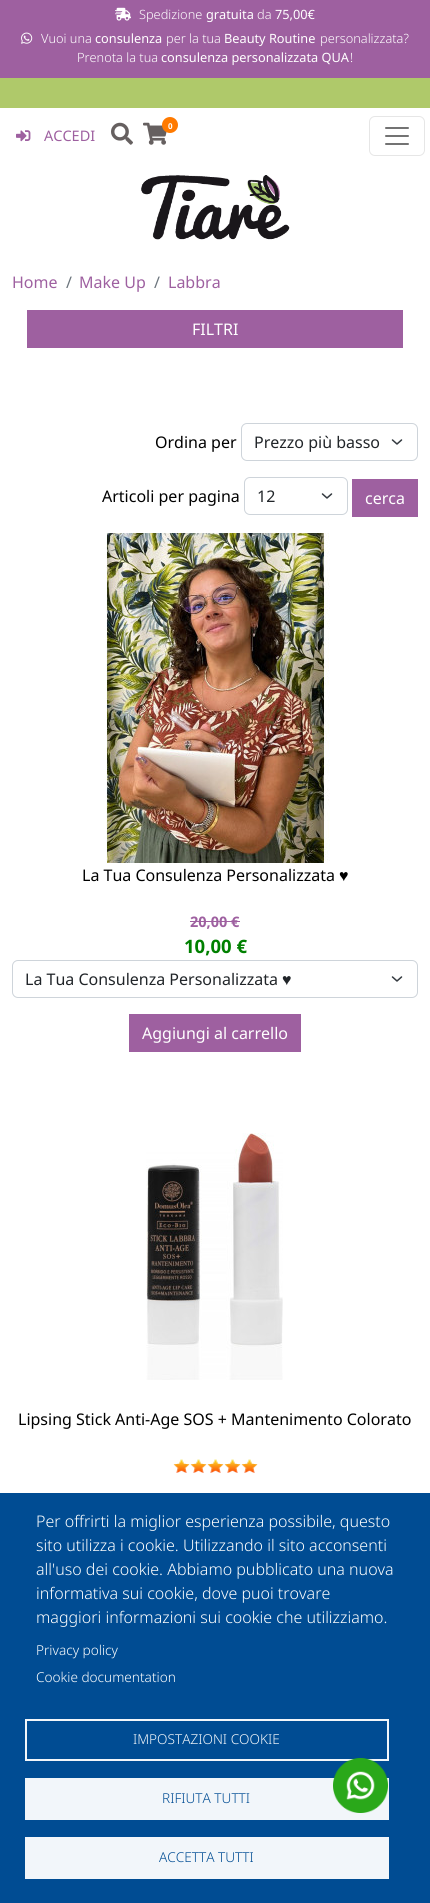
import math
import cairo

surface = cairo.ImageSurface(cairo.FORMAT_RGB24, 430, 1903)
cr = cairo.Context(surface)
options = cairo.FontOptions()
options.set_hint_metrics(cairo.HINT_METRICS_OFF)
options.set_hint_style(cairo.HINT_STYLE_NONE)
cr.set_font_options(options)
cr.set_miter_limit(4)


def rgb(code):
    cr.set_source_rgb(*(v / 255 for v in bytes.fromhex(code[-6:])))


def rrect(x, y, w, h, r):
    cr.new_sub_path()
    for i, (u, v) in enumerate([(x + w - r, y + h - r), (x + r, y + h - r), (x + r, y + r), (x + w - r, y + r)]):
        cr.arc(u, v, r, i * math.pi / 2, (i + 1) * math.pi / 2)
    cr.close_path()


def image(path, x, y, w, h):
    cr.save()
    cr.set_source_surface(cairo.ImageSurface.create_from_png(path), x, y)
    cr.rectangle(x, y, w, h)
    cr.fill()
    cr.restore()


rgb("#ffffff")
cr.paint()
rgb("#9e60a0")
cr.rectangle(0, 0, 430, 78)
cr.fill()
image("img/1.png", 115, 7, 16, 14)
image("img/2.png", 21, 32, 12, 12)
rgb("#004c93")
cr.rectangle(0, 1493, 430, 410)
cr.fill()
cr.rectangle(26, 1720, 362, 40)
rgb("#f2f6fa")
cr.stroke()
for x, y, w, h, color in [
    (25, 1778, 364, 42, "#f2f6fa"),
    (25, 1837, 364, 42, "#f2f6fa"),
    (0, 78, 430, 30, "#afc96a"),
]:
    rgb(color)
    cr.rectangle(x, y, w, h)
    cr.fill()
image("img/3.png", 111, 122, 22, 23)
image("img/4.png", 143, 122, 24, 23)
rgb("#ff7a00")
cr.arc(170, 125, 8, 0, 2 * math.pi)
cr.fill()
image("img/5.png", 16, 130, 15, 12)
rrect(369.5, 116.5, 55, 39, 5.5)
rgb("#e6e6e6")
cr.set_line_width(1)
cr.stroke()
image("img/6.png", 385, 127, 24, 18)
image("img/7.png", 141, 175, 149, 65)
rgb("#9e60a0")
cr.rectangle(27, 310, 376, 38)
cr.fill()
cr.new_path()
cr.move_to(392.5, 440)
cr.line_to(397, 444)
cr.line_to(401.5, 440)
rgb("#343a40")
cr.set_line_width(1.5)
cr.set_line_cap(cairo.LINE_CAP_ROUND)
cr.set_line_join(cairo.LINE_JOIN_ROUND)
cr.stroke()
rrect(241.5, 423.5, 176, 37, 5.5)
rgb("#ced4da")
cr.set_line_width(1)
cr.set_line_cap(cairo.LINE_CAP_BUTT)
cr.set_line_join(cairo.LINE_JOIN_MITER)
cr.stroke()
cr.new_path()
cr.move_to(322.5, 494)
cr.line_to(327, 498)
cr.line_to(331.5, 494)
rgb("#343a40")
cr.set_line_width(1.5)
cr.set_line_cap(cairo.LINE_CAP_ROUND)
cr.set_line_join(cairo.LINE_JOIN_ROUND)
cr.stroke()
rrect(244.5, 477.5, 103, 37, 5.5)
rgb("#ced4da")
cr.set_line_width(1)
cr.set_line_cap(cairo.LINE_CAP_BUTT)
cr.set_line_join(cairo.LINE_JOIN_MITER)
cr.stroke()
rgb("#9e60a0")
cr.rectangle(352, 479, 66, 38)
cr.fill()
image("img/8.png", 106, 533, 224, 330)
cr.rectangle(190, 921, 50, 1)
cr.fill()
cr.new_path()
cr.move_to(392.5, 977)
cr.line_to(397, 981)
cr.line_to(401.5, 977)
rgb("#343a40")
cr.set_line_width(1.5)
cr.set_line_cap(cairo.LINE_CAP_ROUND)
cr.set_line_join(cairo.LINE_JOIN_ROUND)
cr.stroke()
rrect(12.5, 960.5, 405, 37, 5.5)
rgb("#ced4da")
cr.set_line_width(1)
cr.set_line_cap(cairo.LINE_CAP_BUTT)
cr.set_line_join(cairo.LINE_JOIN_MITER)
cr.stroke()
rgb("#9e60a0")
cr.rectangle(129, 1014, 172, 38)
cr.fill()
image("img/9.png", 146, 1133, 137, 247)
image("img/10.png", 174, 1459, 15, 14)
image("img/11.png", 173, 1459, 17, 14)
image("img/10.png", 191, 1459, 15, 14)
image("img/11.png", 190, 1459, 17, 14)
image("img/10.png", 208, 1459, 15, 14)
image("img/11.png", 207, 1459, 17, 14)
image("img/10.png", 225, 1459, 15, 14)
image("img/11.png", 224, 1459, 17, 14)
image("img/10.png", 242, 1459, 15, 14)
image("img/11.png", 241, 1459, 17, 14)
image("img/12.png", 333, 1758, 55, 55)
cr.select_font_face("Noto Sans Light")
cr.set_font_size(12.75)
rgb("#ffffff")
cr.move_to(139, 19)
cr.show_text("Spedizione")
cr.select_font_face("Noto Sans")
cr.move_to(206, 19)
cr.show_text("gratuita")
cr.select_font_face("Noto Sans Light")
cr.move_to(257, 19)
cr.show_text("da")
cr.select_font_face("Noto Sans")
cr.move_to(275, 19)
cr.show_text("75,00€")
cr.select_font_face("Noto Sans Light")
cr.move_to(41, 43)
cr.show_text("Vuoi una")
cr.select_font_face("Noto Sans")
cr.move_to(95, 43)
cr.show_text("consulenza")
cr.select_font_face("Noto Sans Light")
cr.move_to(166, 43)
cr.show_text("per la tua")
cr.select_font_face("Noto Sans")
cr.move_to(224, 43)
cr.show_text("Beauty Routine")
cr.select_font_face("Noto Sans Light")
cr.move_to(320, 43)
cr.show_text("personalizzata?")
cr.move_to(77, 62)
cr.show_text("Prenota la tua")
cr.select_font_face("Noto Sans")
cr.move_to(161, 62)
cr.show_text("consulenza personalizzata QUA")
cr.select_font_face("Noto Sans Light")
cr.move_to(350, 62)
cr.show_text("!")
cr.set_font_size(16)
for x, y, s in [
    (36, 1527, "Per offrirti la miglior esperienza possibile, questo"),
    (36, 1551, "sito utilizza i cookie. Utilizzando il sito acconsenti"),
    (36, 1575, "all'uso dei cookie. Abbiamo pubblicato una nuova"),
    (36, 1599, "informativa sui cookie, dove puoi trovare"),
    (36, 1623, "maggiori informazioni sui cookie che utilizziamo."),
]:
    cr.move_to(x, y)
    cr.show_text(s)
cr.set_font_size(13.6)
cr.move_to(36, 1655)
cr.show_text("Privacy policy")
cr.move_to(36, 1682)
cr.show_text("Cookie documentation")
rgb("#f2f6fa")
cr.move_to(133, 1744)
cr.show_text("IMPOSTAZIONI COOKIE")
rgb("#004c93")
cr.move_to(162, 1803)
cr.show_text("RIFIUTA TUTTI")
cr.move_to(159, 1862)
cr.show_text("ACCETTA TUTTI")
cr.select_font_face("Noto Sans", cairo.FONT_SLANT_NORMAL, cairo.FONT_WEIGHT_BOLD)
cr.set_font_size(8)
rgb("#ffffff")
cr.move_to(168, 129)
cr.show_text("0")
cr.select_font_face("Noto Sans")
cr.set_font_size(14.5)
rgb("#9e60a0")
cr.move_to(44, 141)
cr.show_text("ACCEDI")
cr.set_font_size(16)
cr.move_to(12, 288)
cr.show_text("Home")
rgb("#6c757d")
cr.move_to(66, 288)
cr.show_text("/")
rgb("#9e60a0")
cr.move_to(79, 288)
cr.show_text("Make Up")
rgb("#6c757d")
cr.move_to(154, 288)
cr.show_text("/")
rgb("#9e60a0")
cr.move_to(168, 288)
cr.show_text("Labbra")
rgb("#ffffff")
cr.move_to(192, 335)
cr.show_text("FILTRI")
rgb("#000000")
cr.move_to(155, 448)
cr.show_text("Ordina per")
rgb("#212529")
cr.move_to(254, 448)
cr.show_text("Prezzo più basso")
rgb("#000000")
cr.move_to(102, 502)
cr.show_text("Articoli per pagina")
rgb("#212529")
cr.move_to(257, 502)
cr.show_text("12")
rgb("#ffffff")
cr.move_to(365, 504)
cr.show_text("cerca")
rgb("#000000")
cr.move_to(82, 881)
cr.show_text("La Tua Consulenza Personalizzata")
cr.select_font_face("Liberation Sans")
cr.move_to(339, 881)
cr.show_text("♥")
cr.select_font_face("Noto Sans", cairo.FONT_SLANT_NORMAL, cairo.FONT_WEIGHT_BOLD)
cr.set_font_size(14.5)
rgb("#9e60a0")
cr.move_to(190, 927)
cr.show_text("20,00 €")
cr.set_font_size(18.5)
rgb("#008000")
cr.move_to(184, 953)
cr.show_text("10,00 €")
cr.select_font_face("Noto Sans")
cr.set_font_size(16)
rgb("#212529")
cr.move_to(25, 985)
cr.show_text("La Tua Consulenza Personalizzata")
cr.select_font_face("Liberation Sans")
cr.move_to(282, 985)
cr.show_text("♥")
cr.select_font_face("Noto Sans")
rgb("#ffffff")
cr.move_to(142, 1039)
cr.show_text("Aggiungi al carrello")
rgb("#000000")
cr.move_to(18, 1425)
cr.show_text("Lipsing Stick Anti-Age SOS + Mantenimento Colorato")
surface.write_to_png("page.png")
